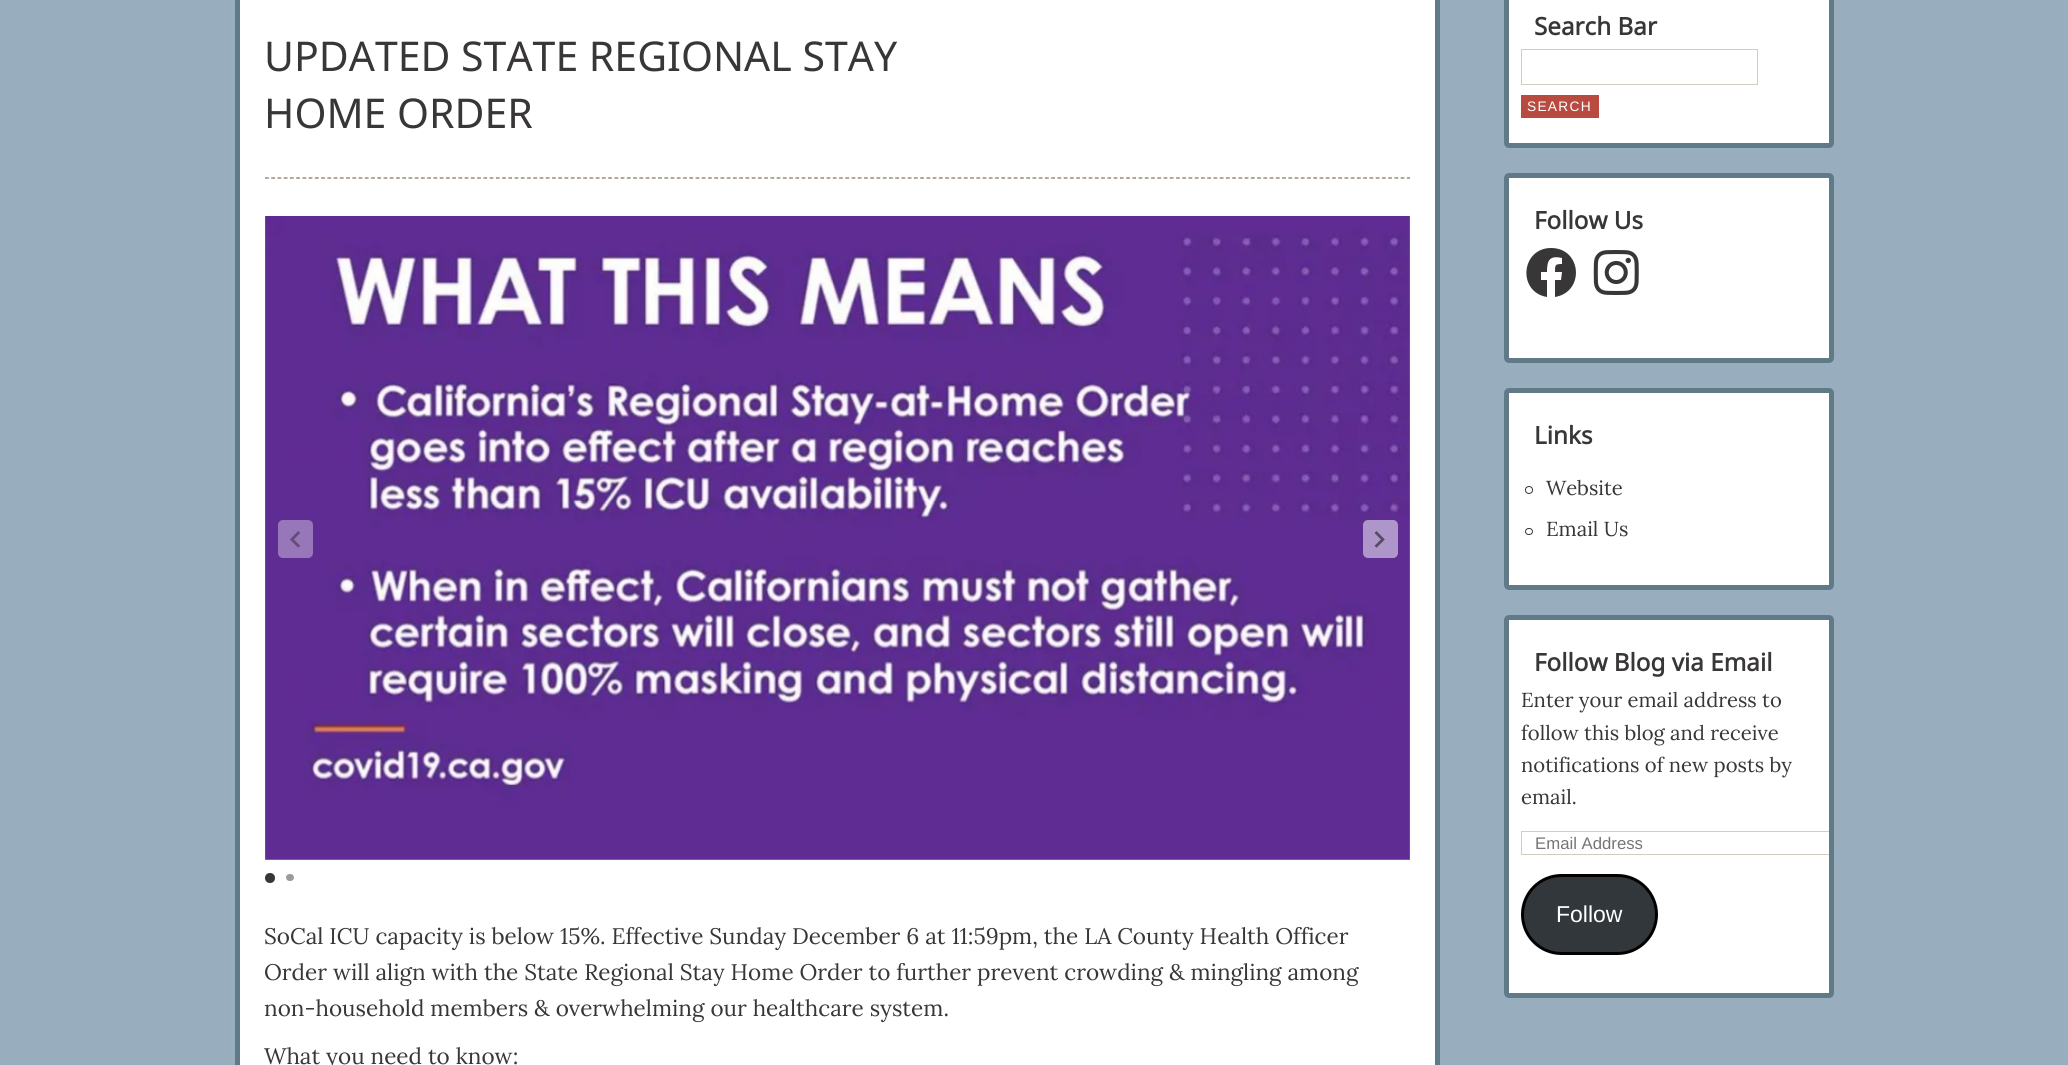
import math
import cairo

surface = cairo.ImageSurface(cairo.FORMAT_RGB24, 2068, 1065)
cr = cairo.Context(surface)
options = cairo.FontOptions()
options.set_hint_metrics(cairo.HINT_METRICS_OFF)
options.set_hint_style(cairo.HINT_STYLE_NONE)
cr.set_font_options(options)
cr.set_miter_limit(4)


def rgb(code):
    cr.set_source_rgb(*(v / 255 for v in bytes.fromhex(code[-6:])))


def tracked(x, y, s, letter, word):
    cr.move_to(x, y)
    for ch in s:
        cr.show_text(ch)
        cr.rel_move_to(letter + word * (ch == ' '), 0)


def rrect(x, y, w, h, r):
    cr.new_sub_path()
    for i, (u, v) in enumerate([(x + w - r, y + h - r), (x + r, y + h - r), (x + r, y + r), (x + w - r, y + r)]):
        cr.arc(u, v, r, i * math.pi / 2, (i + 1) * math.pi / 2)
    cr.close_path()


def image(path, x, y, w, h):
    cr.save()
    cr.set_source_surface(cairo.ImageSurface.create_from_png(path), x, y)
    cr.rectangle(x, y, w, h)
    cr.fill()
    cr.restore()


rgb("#98adbd")
cr.paint()
rgb("#ffffff")
cr.rectangle(237.5, -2.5, 1200, 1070)
cr.fill_preserve()
rgb("#617a88")
cr.set_line_width(5)
cr.stroke()
cr.new_path()
cr.move_to(265, 178)
cr.line_to(1410, 178)
rgb("#837052")
cr.set_line_width(1.2)
cr.set_dash([3.75, 2.49])
cr.stroke()
image("img/1.png", 265, 216, 1145, 644)
image("img/2.png", 1409, 859, 1, 2)
rgb("#9776b9")
rrect(278, 520, 35, 38, 5)
cr.fill()
image("img/3.png", 290, 531, 10, 17)
cr.set_source_rgba(1, 1, 1, 0.5)
rrect(1363, 520, 35, 38, 5)
cr.fill()
image("img/4.png", 1374, 531, 11, 17)
rgb("#393637")
cr.arc(270, 878, 5, 0, 2 * math.pi)
cr.fill()
rgb("#9c9b9b")
rrect(286, 874, 8, 7, 3.5)
cr.fill()
rgb("#ffffff")
rrect(1506.5, -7.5, 325, 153, 2.5)
cr.fill_preserve()
rgb("#617a88")
cr.set_line_width(5)
cr.set_dash([])
cr.stroke()
cr.rectangle(1521.5, 49.5, 236, 35)
rgb("#d3ccc1")
cr.set_line_width(1)
cr.stroke()
rgb("#b84a40")
cr.rectangle(1521, 95, 78, 23)
cr.fill()
rgb("#ffffff")
rrect(1506.5, 175.5, 325, 185, 2.5)
cr.fill_preserve()
rgb("#617a88")
cr.set_line_width(5)
cr.stroke()
rgb("#393637")
cr.new_path()
cr.move_to(1551, 248)
cr.curve_to(1521, 248, 1517, 292, 1547, 297)
cr.line_to(1547, 280)
cr.line_to(1541, 280)
cr.line_to(1541, 272)
cr.line_to(1547, 272)
cr.curve_to(1547, 261, 1549, 255, 1562, 258)
cr.line_to(1562, 264)
cr.curve_to(1555, 264, 1555, 265, 1555, 272)
cr.line_to(1562, 272)
cr.line_to(1561, 280)
cr.line_to(1555, 280)
cr.line_to(1555, 297)
cr.curve_to(1585, 292, 1582, 248, 1551, 248)
cr.close_path()
cr.fill()
image("img/5.png", 1593, 250, 46, 45)
rgb("#ffffff")
rrect(1506.5, 390.5, 325, 197, 2.5)
cr.fill_preserve()
rgb("#617a88")
cr.stroke()
cr.arc(1529, 490, 3.5, 0, 2 * math.pi)
rgb("#393637")
cr.set_line_width(1)
cr.stroke()
rrect(1525.5, 528.5, 7, 6, 3)
cr.stroke()
rgb("#ffffff")
rrect(1506.5, 617.5, 325, 378, 2.5)
cr.fill_preserve()
rgb("#617a88")
cr.set_line_width(5)
cr.stroke()
cr.save()
cr.rectangle(1509, 620, 320, 373)
cr.clip()
cr.rectangle(1521.5, 831.5, 308, 23)
rgb("#d3ccc1")
cr.set_line_width(1)
cr.stroke()
cr.restore()
rgb("#32373c")
rrect(1522.5, 875.5, 134, 78, 39)
cr.fill_preserve()
rgb("#000000")
cr.set_line_width(3)
cr.stroke()
cr.select_font_face("Noto Sans")
cr.set_font_size(41)
rgb("#393637")
cr.move_to(264, 71)
cr.show_text("UPDATED STATE REGIONAL STAY")
cr.move_to(264, 128)
cr.show_text("HOME ORDER")
cr.select_font_face("Lora")
cr.set_font_size(22.5)
for x, y, s in [
    (264, 944, "SoCal ICU capacity is below 15%. Effective Sunday December 6 at 11:59pm, the LA County Health Officer"),
    (264, 980, "Order will align with the State Regional Stay Home Order to further prevent crowding & mingling among"),
    (264, 1016, "non-household members & overwhelming our healthcare system."),
    (264, 1064, "What you need to know:"),
]:
    cr.move_to(x, y)
    cr.show_text(s)
cr.select_font_face("Noto Sans", cairo.FONT_SLANT_NORMAL, cairo.FONT_WEIGHT_BOLD)
cr.set_font_size(24.25)
cr.move_to(1534, 35)
cr.show_text("Search Bar")
cr.select_font_face("Liberation Sans")
cr.set_font_size(13.75)
rgb("#ffffff")
tracked(1527, 111, "SEARCH", 1.25, 0)
cr.select_font_face("Noto Sans", cairo.FONT_SLANT_NORMAL, cairo.FONT_WEIGHT_BOLD)
cr.set_font_size(24.25)
rgb("#393637")
cr.move_to(1534, 229)
cr.show_text("Follow Us")
cr.move_to(1534, 444)
cr.show_text("Links")
cr.select_font_face("Lora")
cr.set_font_size(20.25)
cr.move_to(1546, 495)
cr.show_text("Website")
cr.move_to(1546, 536)
cr.show_text("Email Us")
cr.select_font_face("Noto Sans", cairo.FONT_SLANT_NORMAL, cairo.FONT_WEIGHT_BOLD)
cr.set_font_size(24.25)
cr.move_to(1534, 671)
cr.show_text("Follow Blog via Email")
cr.select_font_face("Lora")
cr.set_font_size(20.25)
for x, y, s in [
    (1521, 707, "Enter your email address to"),
    (1521, 740, "follow this blog and receive"),
    (1521, 772, "notifications of new posts by"),
    (1521, 804, "email."),
]:
    cr.move_to(x, y)
    cr.show_text(s)
cr.select_font_face("Liberation Sans")
cr.set_font_size(16.75)
rgb("#757575")
cr.move_to(1535, 849)
cr.show_text("Email Address")
cr.set_font_size(23)
rgb("#ffffff")
cr.move_to(1556, 922)
cr.show_text("Follow")
surface.write_to_png("page.png")
